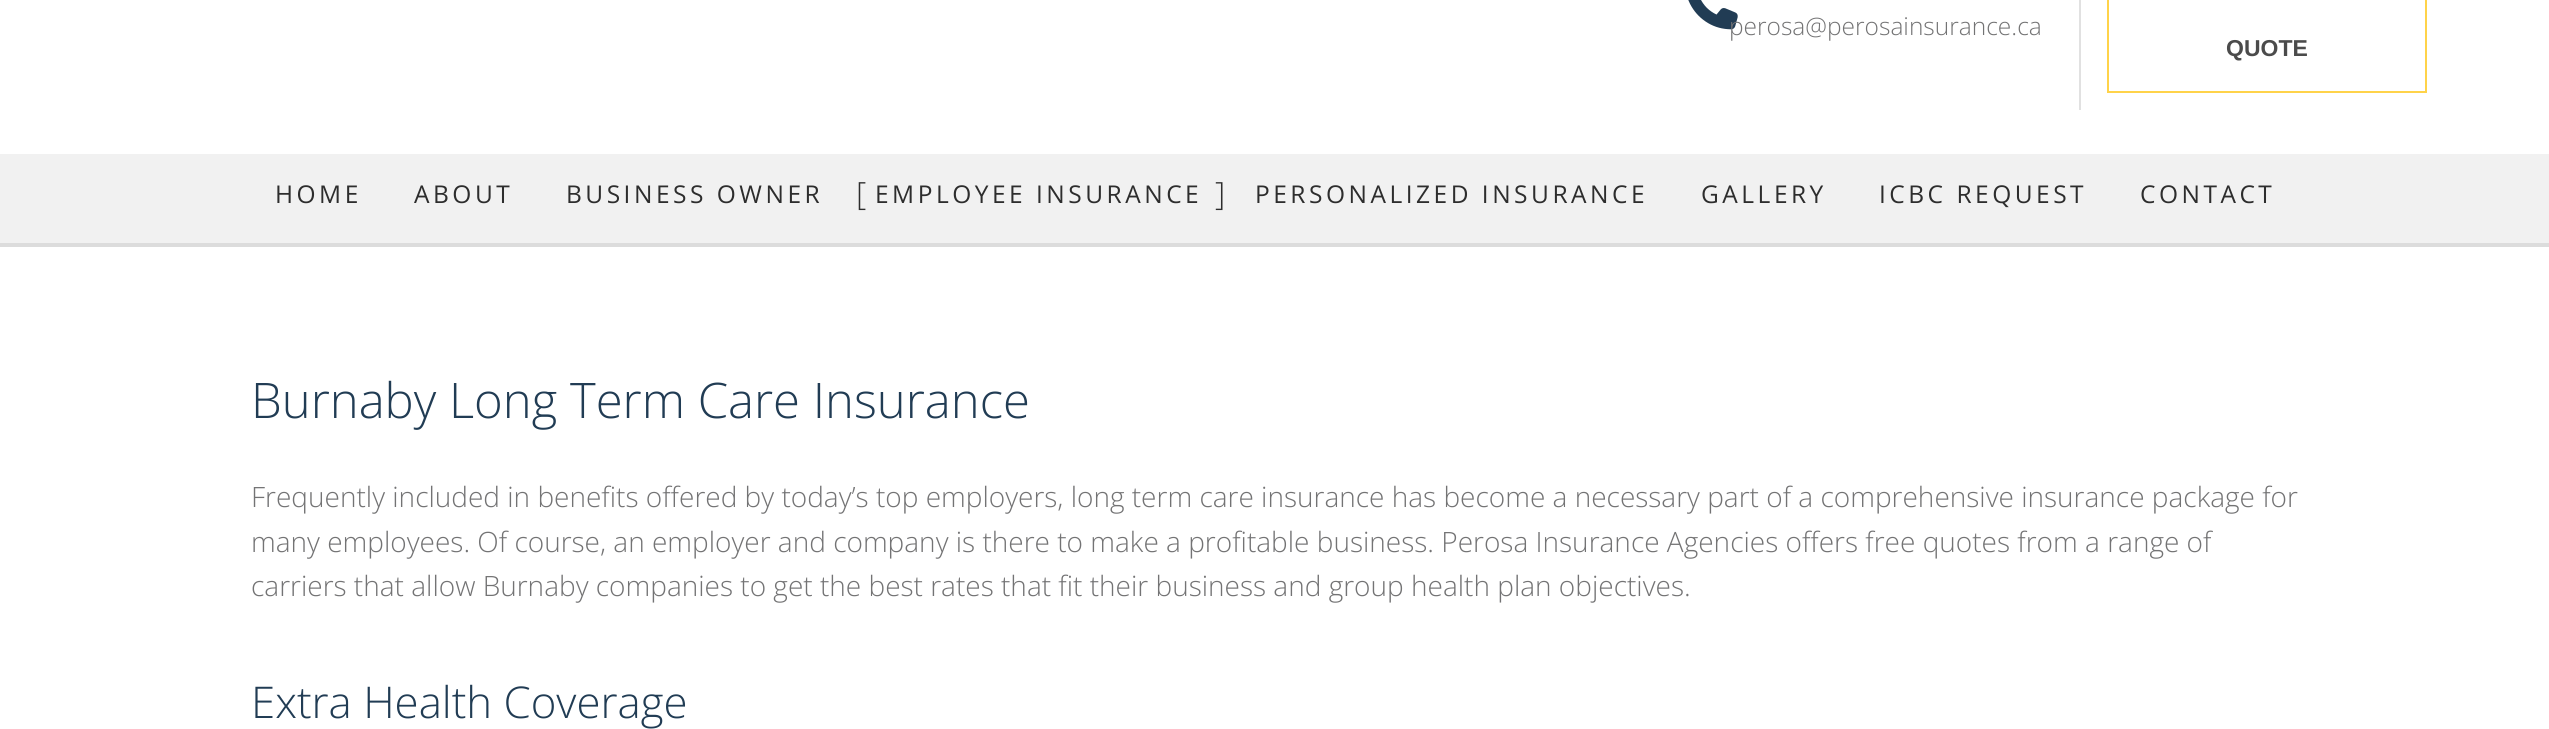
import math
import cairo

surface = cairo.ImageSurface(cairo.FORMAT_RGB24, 2549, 729)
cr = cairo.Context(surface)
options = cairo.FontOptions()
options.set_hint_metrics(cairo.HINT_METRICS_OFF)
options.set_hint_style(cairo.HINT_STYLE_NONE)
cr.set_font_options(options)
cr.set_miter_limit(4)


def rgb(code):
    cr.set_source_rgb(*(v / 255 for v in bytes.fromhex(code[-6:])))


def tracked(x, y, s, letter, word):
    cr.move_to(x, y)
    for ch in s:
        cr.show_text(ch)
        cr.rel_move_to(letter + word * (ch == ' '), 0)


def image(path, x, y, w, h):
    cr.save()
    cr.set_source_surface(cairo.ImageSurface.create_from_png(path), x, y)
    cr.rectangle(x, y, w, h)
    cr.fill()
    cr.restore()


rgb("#f1f1f1")
cr.paint()
rgb("#ffffff")
cr.rectangle(0, 0, 2549, 154)
cr.fill()
image("img/1.png", 1688, 0, 50, 30)
rgb("#e1e1e1")
cr.rectangle(2079, 0, 2, 110)
cr.fill()
cr.rectangle(2108, -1, 318, 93)
rgb("#ffd34a")
cr.stroke()
rgb("#ffffff")
cr.rectangle(0, 247, 2549, 482)
cr.fill()
rgb("#dcdcdc")
cr.rectangle(0, 243, 2549, 4)
cr.fill()
cr.select_font_face("Open Sans Light")
cr.set_font_size(24.5)
rgb("#737374")
cr.move_to(1729, 35)
cr.show_text("perosa@perosainsurance.ca")
cr.select_font_face("Liberation Sans", cairo.FONT_SLANT_NORMAL, cairo.FONT_WEIGHT_BOLD)
cr.set_font_size(23)
rgb("#4b4b4b")
cr.move_to(2226, 56)
cr.show_text("QUOTE")
cr.select_font_face("Open Sans")
cr.set_font_size(24.5)
rgb("#2d2d2d")
for x, y, s in [
    (275, 203, "HOME"),
    (414, 203, "ABOUT"),
    (566, 203, "BUSINESS OWNER"),
]:
    tracked(x, y, s, 3.5, 0)
cr.select_font_face("Open Sans Light")
cr.set_font_size(32)
tracked(856, 205, "[", 3.5, 0)
cr.select_font_face("Open Sans")
cr.set_font_size(24.5)
tracked(875, 203, "EMPLOYEE INSURANCE", 3.5, 0)
cr.select_font_face("Open Sans Light")
cr.set_font_size(32)
tracked(1215, 205, "]", 3.5, 0)
cr.select_font_face("Open Sans")
cr.set_font_size(24.5)
for x, y, s in [
    (1255, 203, "PERSONALIZED INSURANCE"),
    (1701, 203, "GALLERY"),
    (1879, 203, "ICBC REQUEST"),
    (2140, 203, "CONTACT"),
]:
    tracked(x, y, s, 3.5, 0)
cr.select_font_face("Open Sans Light")
cr.set_font_size(49)
rgb("#213c54")
cr.move_to(251, 418)
cr.show_text("Burnaby Long Term Care Insurance")
cr.set_font_size(28)
rgb("#737374")
for x, y, s in [
    (251, 507, "Frequently included in benefits offered by today’s top employers, long term care insurance has become a necessary part of a comprehensive insurance package for"),
    (251, 552, "many employees. Of course, an employer and company is there to make a profitable business. Perosa Insurance Agencies offers free quotes from a range of"),
    (251, 596, "carriers that allow Burnaby companies to get the best rates that fit their business and group health plan objectives."),
]:
    cr.move_to(x, y)
    cr.show_text(s)
cr.set_font_size(43.75)
rgb("#213c54")
cr.move_to(251, 718)
cr.show_text("Extra Health Coverage")
surface.write_to_png("page.png")
